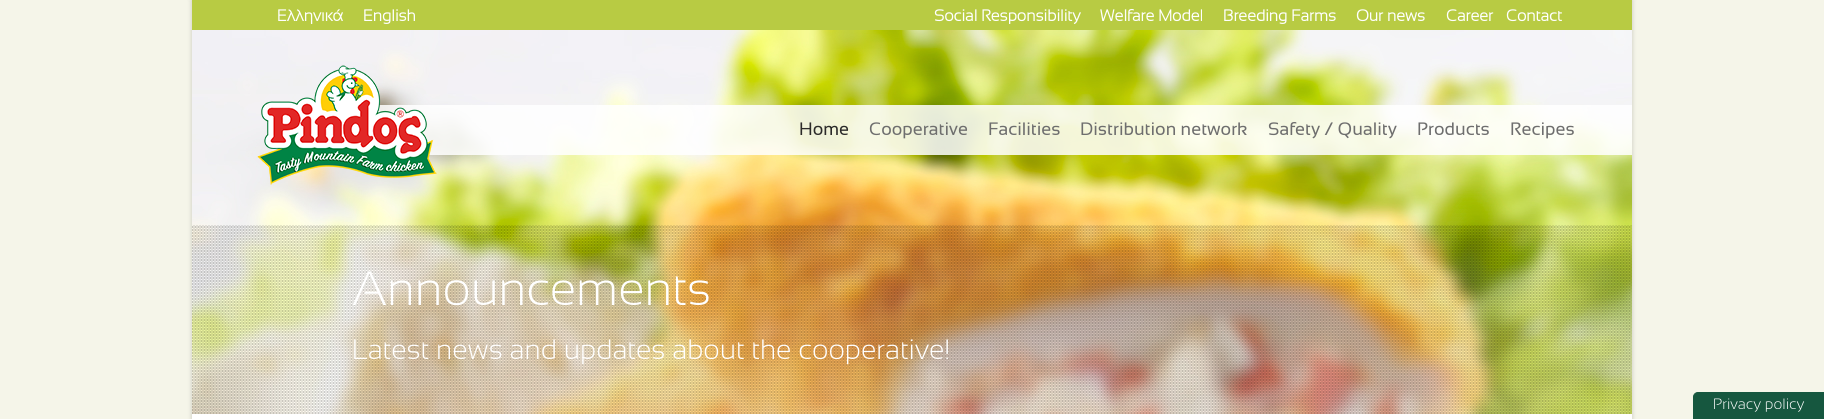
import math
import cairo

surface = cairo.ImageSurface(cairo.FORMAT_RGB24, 1824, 419)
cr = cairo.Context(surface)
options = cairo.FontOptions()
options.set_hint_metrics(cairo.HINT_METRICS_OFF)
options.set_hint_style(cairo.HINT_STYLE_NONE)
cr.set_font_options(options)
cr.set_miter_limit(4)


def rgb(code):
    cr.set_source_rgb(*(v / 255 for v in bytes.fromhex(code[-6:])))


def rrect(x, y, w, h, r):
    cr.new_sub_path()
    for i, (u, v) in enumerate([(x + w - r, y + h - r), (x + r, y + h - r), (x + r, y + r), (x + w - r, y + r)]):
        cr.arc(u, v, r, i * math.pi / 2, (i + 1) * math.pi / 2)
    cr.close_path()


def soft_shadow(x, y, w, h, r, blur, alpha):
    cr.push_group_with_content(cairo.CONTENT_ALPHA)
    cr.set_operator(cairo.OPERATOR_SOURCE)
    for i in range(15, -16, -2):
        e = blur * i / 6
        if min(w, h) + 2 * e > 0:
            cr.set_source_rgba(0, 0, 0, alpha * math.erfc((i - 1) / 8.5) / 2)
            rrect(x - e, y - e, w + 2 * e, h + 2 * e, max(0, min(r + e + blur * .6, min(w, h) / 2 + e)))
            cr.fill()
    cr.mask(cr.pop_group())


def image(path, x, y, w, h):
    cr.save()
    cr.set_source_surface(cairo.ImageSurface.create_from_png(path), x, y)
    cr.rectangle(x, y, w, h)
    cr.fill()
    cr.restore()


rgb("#f5f5e9")
cr.paint()
rgb("#000000")
soft_shadow(192, 0, 1440, 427, 0, 2.5, 0.2)
rgb("#b8cb43")
cr.rectangle(192, 0, 1440, 30)
cr.fill()
image("img/2.png", 192, 30, 1440, 384)
cr.set_source_rgba(1, 1, 1, 0.85)
cr.rectangle(377, 105, 1255, 50)
cr.fill()
image("img/1.png", 257, 65, 180, 120)
image("img/3.png", 192, 225, 1440, 189)
rgb("#ffffff")
cr.rectangle(192, 414, 1440, 5)
cr.fill()
rgb("#16573f")
cr.new_path()
cr.move_to(1698, 392.5)
cr.line_to(1823.5, 392.5)
cr.line_to(1823.5, 418.5)
cr.line_to(1693.5, 418.5)
cr.line_to(1693.5, 397)
cr.curve_to(1693.5, 394.5, 1695.5, 392.5, 1698, 392.5)
cr.close_path()
cr.fill_preserve()
cr.set_line_width(1)
cr.stroke()
cr.select_font_face("Sansation Light", cairo.FONT_SLANT_NORMAL, cairo.FONT_WEIGHT_BOLD)
cr.set_font_size(16)
rgb("#ffffff")
for x, y, s in [
    (277, 21, "Ελληνικά"),
    (363, 21, "English"),
    (934, 21, "Social Responsibility"),
    (1100, 21, "Welfare Model"),
    (1223, 21, "Breeding Farms"),
    (1356, 21, "Our news"),
    (1446, 21, "Career"),
    (1506, 21, "Contact"),
]:
    cr.move_to(x, y)
    cr.show_text(s)
cr.select_font_face("Sansation")
cr.set_font_size(18)
rgb("#2b2a29")
cr.move_to(799, 135)
cr.show_text("Home")
rgb("#6e6e6e")
for x, y, s in [
    (869, 135, "Cooperative"),
    (988, 135, "Facilities"),
    (1080, 135, "Distribution network"),
    (1268, 135, "Safety / Quality"),
    (1417, 135, "Products"),
    (1510, 135, "Recipes"),
]:
    cr.move_to(x, y)
    cr.show_text(s)
cr.select_font_face("Sansation Light Light")
cr.set_font_size(48)
rgb("#ffffff")
cr.move_to(352, 305)
cr.show_text("Announcements")
cr.set_font_size(28)
cr.move_to(352, 359)
cr.show_text("Latest news and updates about the cooperative!")
cr.set_font_size(15)
cr.move_to(1713, 409)
cr.show_text("Privacy policy")
surface.write_to_png("page.png")
